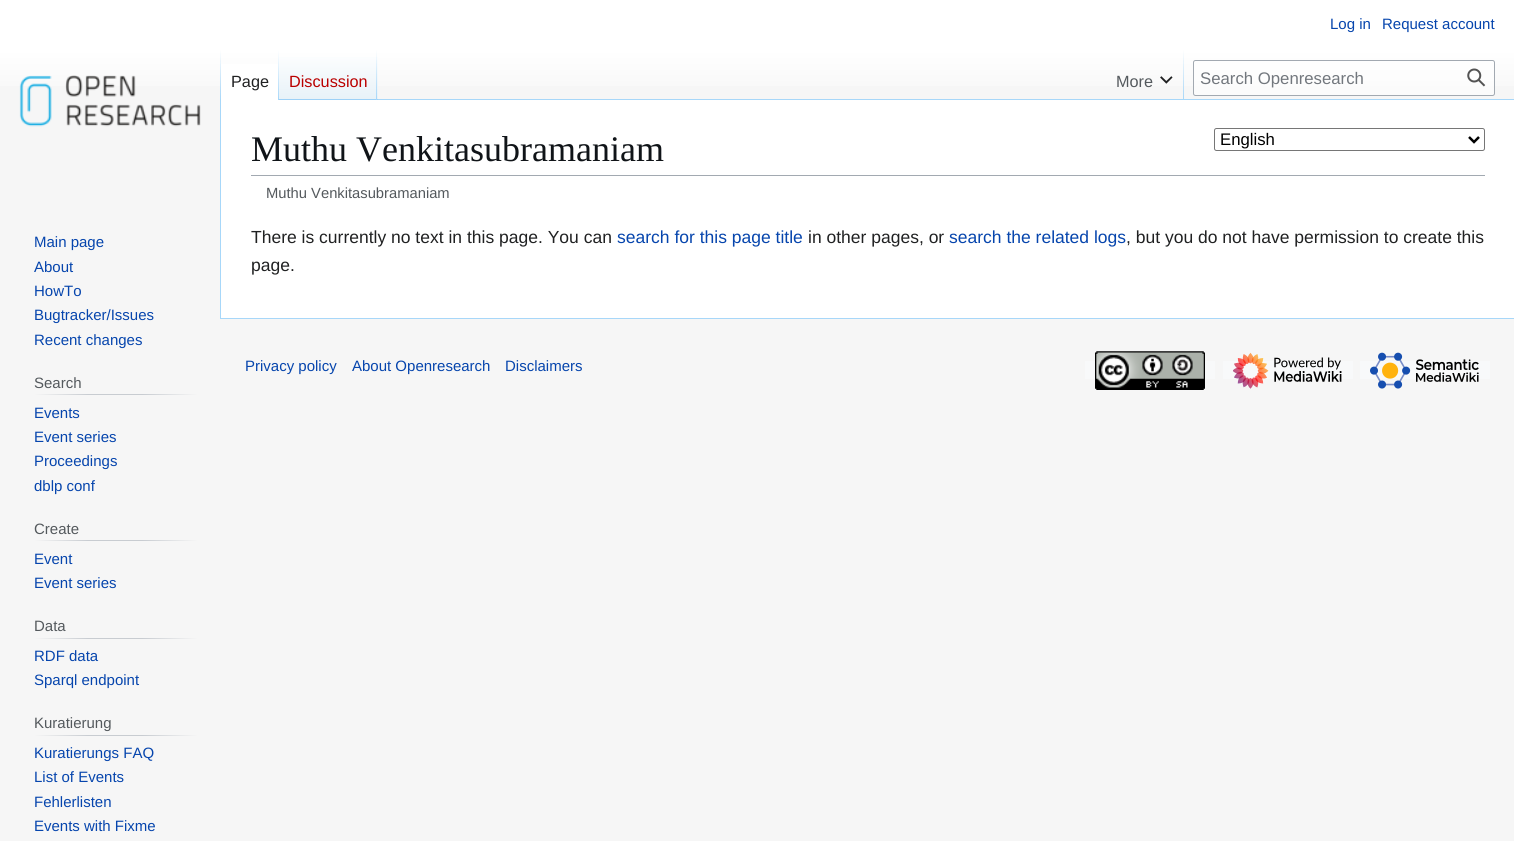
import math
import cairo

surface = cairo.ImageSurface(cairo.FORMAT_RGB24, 1514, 841)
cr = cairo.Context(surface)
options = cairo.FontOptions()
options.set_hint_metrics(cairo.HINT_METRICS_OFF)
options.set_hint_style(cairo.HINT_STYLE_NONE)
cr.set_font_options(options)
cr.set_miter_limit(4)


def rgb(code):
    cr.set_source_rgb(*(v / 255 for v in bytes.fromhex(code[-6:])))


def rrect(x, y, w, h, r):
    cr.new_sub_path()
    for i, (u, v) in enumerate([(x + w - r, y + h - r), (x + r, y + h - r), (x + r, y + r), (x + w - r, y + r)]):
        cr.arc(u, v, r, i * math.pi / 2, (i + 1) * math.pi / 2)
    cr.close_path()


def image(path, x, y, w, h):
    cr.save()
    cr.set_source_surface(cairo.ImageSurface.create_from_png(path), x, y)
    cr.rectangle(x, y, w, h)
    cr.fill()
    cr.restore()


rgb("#f6f6f6")
cr.paint()
gradient = cairo.LinearGradient(758, 0, 758, 100)
gradient.add_color_stop_rgba(0.5, 1, 1, 1, 1)
gradient.add_color_stop_rgba(1, 0.965, 0.965, 0.965, 1)
cr.set_source(gradient)
cr.rectangle(0, 0, 1514, 86)
cr.fill()
rgb("#a7d7f9")
cr.rectangle(220, 318, 1294, 1)
cr.fill()
cr.rectangle(220, 99, 1, 220)
cr.fill()
gradient = cairo.LinearGradient(221, 50, 221, 100)
gradient.add_color_stop_rgba(0, 0.655, 0.843, 0.976, 0)
gradient.add_color_stop_rgba(1, 0.655, 0.843, 0.976, 1)
cr.set_source(gradient)
cr.rectangle(220, 50, 1, 50)
cr.fill()
rgb("#ffffff")
cr.rectangle(221, 64, 57, 36)
cr.fill()
gradient = cairo.LinearGradient(278, 50, 278, 100)
gradient.add_color_stop_rgba(0, 1, 1, 1, 1)
gradient.add_color_stop_rgba(1, 0.655, 0.843, 0.976, 1)
cr.set_source(gradient)
cr.rectangle(278, 50, 1, 50)
cr.fill()
gradient = cairo.LinearGradient(328, 100, 328, 50)
gradient.add_color_stop_rgba(0, 0.467, 0.757, 0.965, 1)
gradient.add_color_stop_rgba(0.03, 0.91, 0.949, 0.973, 1)
gradient.add_color_stop_rgba(1, 1, 1, 1, 1)
cr.set_source(gradient)
cr.rectangle(279, 57, 99, 43)
cr.fill()
gradient = cairo.LinearGradient(377, 50, 377, 100)
gradient.add_color_stop_rgba(0, 0.655, 0.843, 0.976, 0)
gradient.add_color_stop_rgba(1, 0.655, 0.843, 0.976, 1)
cr.set_source(gradient)
cr.rectangle(376, 50, 1, 50)
cr.fill()
rgb("#a7d7f9")
cr.rectangle(378, 99, 1136, 1)
cr.fill()
gradient = cairo.LinearGradient(1183, 50, 1183, 100)
gradient.add_color_stop_rgba(0, 0.655, 0.843, 0.976, 0)
gradient.add_color_stop_rgba(1, 0.655, 0.843, 0.976, 1)
cr.set_source(gradient)
cr.rectangle(1183, 50, 1, 50)
cr.fill()
image("img/1.png", 1160, 76, 13, 8)
cr.set_source_rgba(1, 1, 1, 0.5)
rrect(1193.5, 60.5, 301, 35, 2)
cr.fill_preserve()
rgb("#a2a9b1")
cr.set_line_width(1)
cr.stroke()
image("img/2.png", 1467, 68, 19, 19)
image("img/3.png", 19, 75, 182, 52)
gradient = cairo.LinearGradient(34, 394, 198, 394)
gradient.add_color_stop_rgba(0, 0.965, 0.965, 0.965, 1)
gradient.add_color_stop_rgba(0.33, 0.784, 0.8, 0.82, 1)
gradient.add_color_stop_rgba(0.66, 0.784, 0.8, 0.82, 1)
gradient.add_color_stop_rgba(1, 0.965, 0.965, 0.965, 1)
cr.set_source(gradient)
cr.rectangle(34, 394, 164, 1)
cr.fill()
gradient = cairo.LinearGradient(34, 541, 198, 541)
gradient.add_color_stop_rgba(0, 0.965, 0.965, 0.965, 1)
gradient.add_color_stop_rgba(0.33, 0.784, 0.8, 0.82, 1)
gradient.add_color_stop_rgba(0.66, 0.784, 0.8, 0.82, 1)
gradient.add_color_stop_rgba(1, 0.965, 0.965, 0.965, 1)
cr.set_source(gradient)
cr.rectangle(34, 540, 164, 1)
cr.fill()
gradient = cairo.LinearGradient(34, 638, 198, 638)
gradient.add_color_stop_rgba(0, 0.965, 0.965, 0.965, 1)
gradient.add_color_stop_rgba(0.33, 0.784, 0.8, 0.82, 1)
gradient.add_color_stop_rgba(0.66, 0.784, 0.8, 0.82, 1)
gradient.add_color_stop_rgba(1, 0.965, 0.965, 0.965, 1)
cr.set_source(gradient)
cr.rectangle(34, 638, 164, 1)
cr.fill()
gradient = cairo.LinearGradient(34, 736, 198, 736)
gradient.add_color_stop_rgba(0, 0.965, 0.965, 0.965, 1)
gradient.add_color_stop_rgba(0.33, 0.784, 0.8, 0.82, 1)
gradient.add_color_stop_rgba(0.66, 0.784, 0.8, 0.82, 1)
gradient.add_color_stop_rgba(1, 0.965, 0.965, 0.965, 1)
cr.set_source(gradient)
cr.rectangle(34, 735, 164, 1)
cr.fill()
rgb("#ffffff")
cr.rectangle(221, 100, 1293, 218)
cr.fill()
rgb("#a2a9b1")
cr.rectangle(251, 175, 1234, 1)
cr.fill()
rrect(1214.5, 128.5, 270, 22, 2)
rgb("#767676")
cr.stroke()
cr.new_path()
cr.move_to(1469, 137)
cr.line_to(1474, 142)
cr.line_to(1479, 137)
rgb("#000000")
cr.set_line_width(2.5)
cr.stroke()
rgb("#f8f9fa")
cr.rectangle(1085, 361, 130, 18)
cr.fill()
image("img/4.png", 1095, 351, 110, 39)
cr.rectangle(1223, 361, 130, 18)
cr.fill()
image("img/5.png", 1233, 352, 109, 37)
cr.rectangle(1360, 361, 130, 18)
cr.fill()
image("img/6.png", 1370, 352, 109, 37)
cr.select_font_face("Liberation Sans")
cr.set_font_size(15)
rgb("#0645ad")
cr.move_to(1330, 29)
cr.show_text("Log in")
cr.move_to(1382, 29)
cr.show_text("Request account")
cr.set_font_size(16.25)
rgb("#202122")
cr.move_to(231, 87)
cr.show_text("Page")
rgb("#ba0000")
cr.move_to(289, 87)
cr.show_text("Discussion")
rgb("#54595d")
cr.move_to(1116, 87)
cr.show_text("More")
cr.set_font_size(16.75)
rgb("#72777d")
cr.move_to(1200, 84)
cr.show_text("Search Openresearch")
cr.set_font_size(15)
rgb("#0645ad")
for x, y, s in [
    (34, 247, "Main page"),
    (34, 272, "About"),
    (34, 296, "HowTo"),
    (34, 320, "Bugtracker/Issues"),
    (34, 345, "Recent changes"),
]:
    cr.move_to(x, y)
    cr.show_text(s)
rgb("#54595d")
cr.move_to(34, 388)
cr.show_text("Search")
rgb("#0645ad")
for x, y, s in [
    (34, 418, "Events"),
    (34, 442, "Event series"),
    (34, 466, "Proceedings"),
    (34, 491, "dblp conf"),
]:
    cr.move_to(x, y)
    cr.show_text(s)
rgb("#54595d")
cr.move_to(34, 534)
cr.show_text("Create")
rgb("#0645ad")
cr.move_to(34, 564)
cr.show_text("Event")
cr.move_to(34, 588)
cr.show_text("Event series")
rgb("#54595d")
cr.move_to(34, 631)
cr.show_text("Data")
rgb("#0645ad")
cr.move_to(34, 661)
cr.show_text("RDF data")
cr.move_to(34, 685)
cr.show_text("Sparql endpoint")
rgb("#54595d")
cr.move_to(34, 728)
cr.show_text("Kuratierung")
rgb("#0645ad")
for x, y, s in [
    (34, 758, "Kuratierungs FAQ"),
    (34, 782, "List of Events"),
    (34, 807, "Fehlerlisten"),
    (34, 831, "Events with Fixme"),
]:
    cr.move_to(x, y)
    cr.show_text(s)
cr.select_font_face("Liberation Serif")
cr.set_font_size(36)
rgb("#101418")
cr.move_to(251, 161)
cr.show_text("Muthu Venkitasubramaniam")
cr.select_font_face("Liberation Sans")
cr.set_font_size(16.75)
rgb("#000000")
cr.move_to(1220, 145)
cr.show_text("English")
cr.set_font_size(14.75)
rgb("#54595d")
cr.move_to(266, 198)
cr.show_text("Muthu Venkitasubramaniam")
cr.set_font_size(17.5)
rgb("#202122")
cr.move_to(251, 243)
cr.show_text("There is currently no text in this page. You can")
rgb("#0645ad")
cr.move_to(617, 243)
cr.show_text("search for this page title")
rgb("#202122")
cr.move_to(808, 243)
cr.show_text("in other pages, or")
rgb("#0645ad")
cr.move_to(949, 243)
cr.show_text("search the related logs")
rgb("#202122")
cr.move_to(1126, 243)
cr.show_text(", but you do not have permission to create this")
cr.move_to(251, 271)
cr.show_text("page.")
cr.set_font_size(15)
rgb("#0645ad")
for x, y, s in [
    (245, 371, "Privacy policy"),
    (352, 371, "About Openresearch"),
    (505, 371, "Disclaimers"),
]:
    cr.move_to(x, y)
    cr.show_text(s)
surface.write_to_png("page.png")
